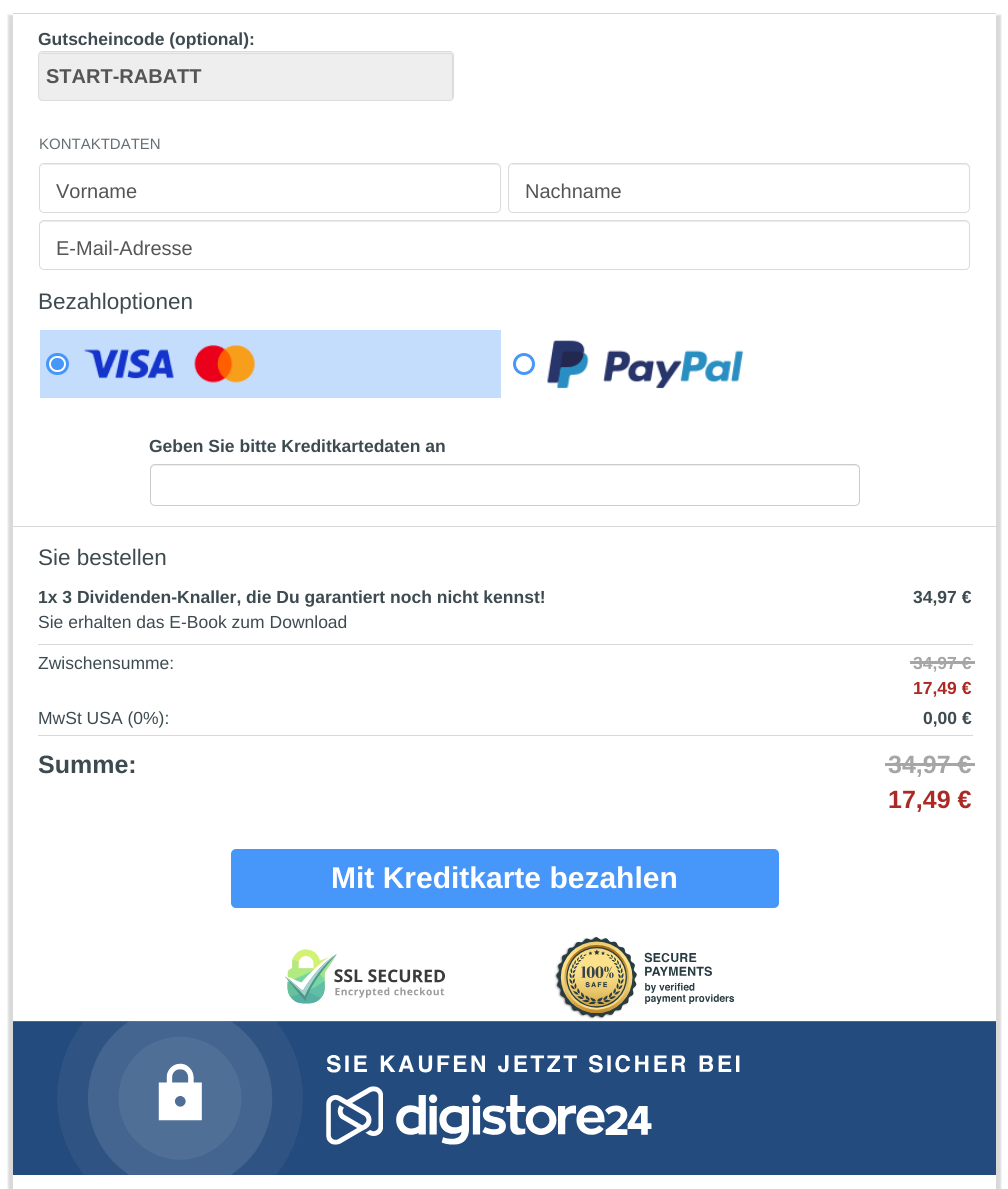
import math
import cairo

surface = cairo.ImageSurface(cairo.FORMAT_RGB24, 1008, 1189)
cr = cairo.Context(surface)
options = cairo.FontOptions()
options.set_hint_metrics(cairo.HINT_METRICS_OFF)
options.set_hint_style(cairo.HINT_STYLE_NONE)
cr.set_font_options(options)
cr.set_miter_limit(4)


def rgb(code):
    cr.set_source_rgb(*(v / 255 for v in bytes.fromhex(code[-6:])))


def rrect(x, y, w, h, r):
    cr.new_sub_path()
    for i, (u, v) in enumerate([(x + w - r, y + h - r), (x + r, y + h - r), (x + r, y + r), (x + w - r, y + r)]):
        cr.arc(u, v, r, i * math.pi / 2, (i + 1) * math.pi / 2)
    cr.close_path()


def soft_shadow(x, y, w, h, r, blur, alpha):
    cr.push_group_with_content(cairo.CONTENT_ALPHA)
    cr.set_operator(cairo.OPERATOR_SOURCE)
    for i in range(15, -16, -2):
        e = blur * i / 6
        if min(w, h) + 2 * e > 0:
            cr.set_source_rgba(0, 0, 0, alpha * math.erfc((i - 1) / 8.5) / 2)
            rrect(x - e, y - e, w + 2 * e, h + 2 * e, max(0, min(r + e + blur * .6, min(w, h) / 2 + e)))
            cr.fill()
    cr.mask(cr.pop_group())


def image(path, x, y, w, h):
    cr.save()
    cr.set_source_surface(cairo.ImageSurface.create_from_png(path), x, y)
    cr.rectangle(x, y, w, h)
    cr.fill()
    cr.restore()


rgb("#ffffff")
cr.paint()
cr.save()
cr.rectangle(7, 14, 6, 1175)
cr.clip()
rgb("#000000")
soft_shadow(8, 15, 983, 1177, 0, 1, 0.15)
cr.restore()
cr.save()
cr.rectangle(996, 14, 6, 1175)
cr.clip()
rgb("#000000")
soft_shadow(18, 15, 983, 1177, 0, 1, 0.15)
cr.restore()
rgb("#d8d8d8")
cr.rectangle(13, 13, 983, 1)
cr.fill()
rgb("#eeeeee")
rrect(38, 51, 416, 50, 5)
cr.fill()
rgb("#dcdcdc")
cr.new_path()
cr.move_to(42, 54)
cr.line_to(449, 54)
cr.curve_to(451, 54, 452, 55, 452, 58)
cr.line_to(452, 99)
cr.curve_to(453, 98, 453, 97, 453, 96)
cr.line_to(453, 57)
cr.curve_to(453, 55, 451, 53, 449, 53)
cr.line_to(43, 53)
cr.curve_to(41, 53, 39, 55, 39, 57)
cr.line_to(39, 58)
cr.curve_to(39, 55, 40, 54, 42, 54)
cr.close_path()
cr.fill()
rrect(38.5, 51.5, 415, 49, 4.5)
rgb("#dbdbdb")
cr.set_line_width(1)
cr.stroke()
rgb("#ececec")
cr.new_path()
cr.move_to(44, 165)
cr.line_to(496, 165)
cr.curve_to(498, 165, 500, 167, 500, 169)
cr.curve_to(500, 166, 499, 164, 496, 164)
cr.line_to(44, 164)
cr.line_to(42, 165)
cr.line_to(41, 166)
cr.line_to(40, 169)
cr.curve_to(40, 167, 42, 165, 44, 165)
cr.close_path()
cr.fill()
rrect(39.5, 163.5, 461, 49, 4.5)
rgb("#dbdbdb")
cr.stroke()
rgb("#ececec")
cr.new_path()
cr.move_to(512, 165)
cr.line_to(965, 165)
cr.curve_to(967, 165, 969, 167, 969, 169)
cr.curve_to(969, 166, 968, 164, 965, 164)
cr.line_to(513, 164)
cr.line_to(511, 165)
cr.line_to(510, 166)
cr.line_to(509, 169)
cr.curve_to(509, 167, 510, 165, 512, 165)
cr.close_path()
cr.fill()
rrect(508.5, 163.5, 461, 49, 4.5)
rgb("#dbdbdb")
cr.stroke()
rgb("#ececec")
cr.new_path()
cr.move_to(44, 222)
cr.line_to(965, 222)
cr.curve_to(967, 222, 969, 224, 969, 226)
cr.curve_to(969, 223, 968, 221, 965, 221)
cr.line_to(44, 221)
cr.curve_to(41, 221, 40, 223, 40, 226)
cr.curve_to(40, 224, 42, 222, 44, 222)
cr.close_path()
cr.fill()
rrect(39.5, 220.5, 930, 49, 4.5)
rgb("#dbdbdb")
cr.stroke()
rgb("#c4ddfd")
cr.rectangle(40, 330, 461, 68)
cr.fill()
rgb("#ffffff")
rrect(47.5, 354.5, 20, 19, 9.5)
cr.fill_preserve()
rgb("#4796fa")
cr.set_line_width(3)
cr.stroke()
image("img/1.png", 84, 345, 171, 38)
rrect(51, 358, 13, 12, 6)
cr.fill()
cr.arc(524, 364, 9.5, 0, 2 * math.pi)
cr.stroke()
image("img/2.png", 547, 340, 197, 49)
rgb("#ececec")
cr.new_path()
cr.move_to(155, 466)
cr.line_to(855, 466)
cr.curve_to(857, 466, 859, 468, 859, 470)
cr.curve_to(859, 467, 858, 465, 855, 465)
cr.line_to(155, 465)
cr.line_to(152, 466)
cr.line_to(151, 467)
cr.line_to(151, 470)
cr.curve_to(151, 468, 153, 466, 155, 466)
cr.close_path()
cr.fill()
rrect(150.5, 464.5, 709, 41, 4.5)
rgb("#cccccc")
cr.set_line_width(1)
cr.stroke()
for x, y, w, h, color in [
    (13, 526, 983, 1, "#d8d8d8"),
    (38, 644, 935, 1, "#d8d8d8"),
    (910, 661, 65, 3, "#a6a6a6"),
    (38, 735, 935, 1, "#d8d8d8"),
    (885, 763, 90, 3, "#a6a6a6"),
]:
    rgb(color)
    cr.rectangle(x, y, w, h)
    cr.fill()
rgb("#4796fa")
rrect(231, 849, 548, 59, 5)
cr.fill()
image("img/3.png", 285, 949, 160, 55)
image("img/4.png", 554, 936, 181, 83)
cr.rectangle(13, 1021, 983, 154)
cr.fill()
image("img/5.png", 13, 1021, 983, 154)
cr.select_font_face("Liberation Sans", cairo.FONT_SLANT_NORMAL, cairo.FONT_WEIGHT_BOLD)
cr.set_font_size(17.5)
rgb("#3d4b51")
cr.move_to(38, 45)
cr.show_text("Gutscheincode (optional):")
cr.set_font_size(20)
rgb("#555555")
cr.move_to(46, 83)
cr.show_text("START-RABATT")
cr.select_font_face("Liberation Sans")
cr.set_font_size(15)
rgb("#646f74")
cr.move_to(39, 149)
cr.show_text("KONTAKTDATEN")
cr.set_font_size(20)
rgb("#555555")
for x, y, s in [
    (56, 198, "Vorname"),
    (525, 198, "Nachname"),
    (56, 255, "E-Mail-Adresse"),
]:
    cr.move_to(x, y)
    cr.show_text(s)
cr.set_font_size(22.5)
rgb("#3d4b51")
cr.move_to(38, 309)
cr.show_text("Bezahloptionen")
cr.select_font_face("Liberation Sans", cairo.FONT_SLANT_NORMAL, cairo.FONT_WEIGHT_BOLD)
cr.set_font_size(17.5)
cr.move_to(149, 452)
cr.show_text("Geben Sie bitte Kreditkartedaten an")
cr.select_font_face("Liberation Sans")
cr.set_font_size(22.5)
cr.move_to(38, 565)
cr.show_text("Sie bestellen")
cr.select_font_face("Liberation Sans", cairo.FONT_SLANT_NORMAL, cairo.FONT_WEIGHT_BOLD)
cr.set_font_size(17.5)
cr.move_to(38, 603)
cr.show_text("1x 3 Dividenden-Knaller, die Du garantiert noch nicht kennst!")
cr.select_font_face("Liberation Sans")
cr.move_to(38, 628)
cr.show_text("Sie erhalten das E-Book zum Download")
cr.select_font_face("Liberation Sans", cairo.FONT_SLANT_NORMAL, cairo.FONT_WEIGHT_BOLD)
cr.move_to(913, 603)
cr.show_text("34,97 €")
cr.select_font_face("Liberation Sans")
cr.move_to(38, 669)
cr.show_text("Zwischensumme:")
cr.select_font_face("Liberation Sans", cairo.FONT_SLANT_NORMAL, cairo.FONT_WEIGHT_BOLD)
rgb("#a6a6a6")
cr.move_to(913, 669)
cr.show_text("34,97 €")
rgb("#ac2925")
cr.move_to(913, 694)
cr.show_text("17,49 €")
cr.select_font_face("Liberation Sans")
rgb("#3d4b51")
cr.move_to(38, 724)
cr.show_text("MwSt USA (0%):")
cr.select_font_face("Liberation Sans", cairo.FONT_SLANT_NORMAL, cairo.FONT_WEIGHT_BOLD)
cr.move_to(923, 724)
cr.show_text("0,00 €")
cr.set_font_size(25)
cr.move_to(38, 773)
cr.show_text("Summe:")
rgb("#a6a6a6")
cr.move_to(888, 773)
cr.show_text("34,97 €")
rgb("#ac2925")
cr.move_to(888, 808)
cr.show_text("17,49 €")
cr.set_font_size(30)
rgb("#ffffff")
cr.move_to(331, 888)
cr.show_text("Mit Kreditkarte bezahlen")
surface.write_to_png("page.png")
